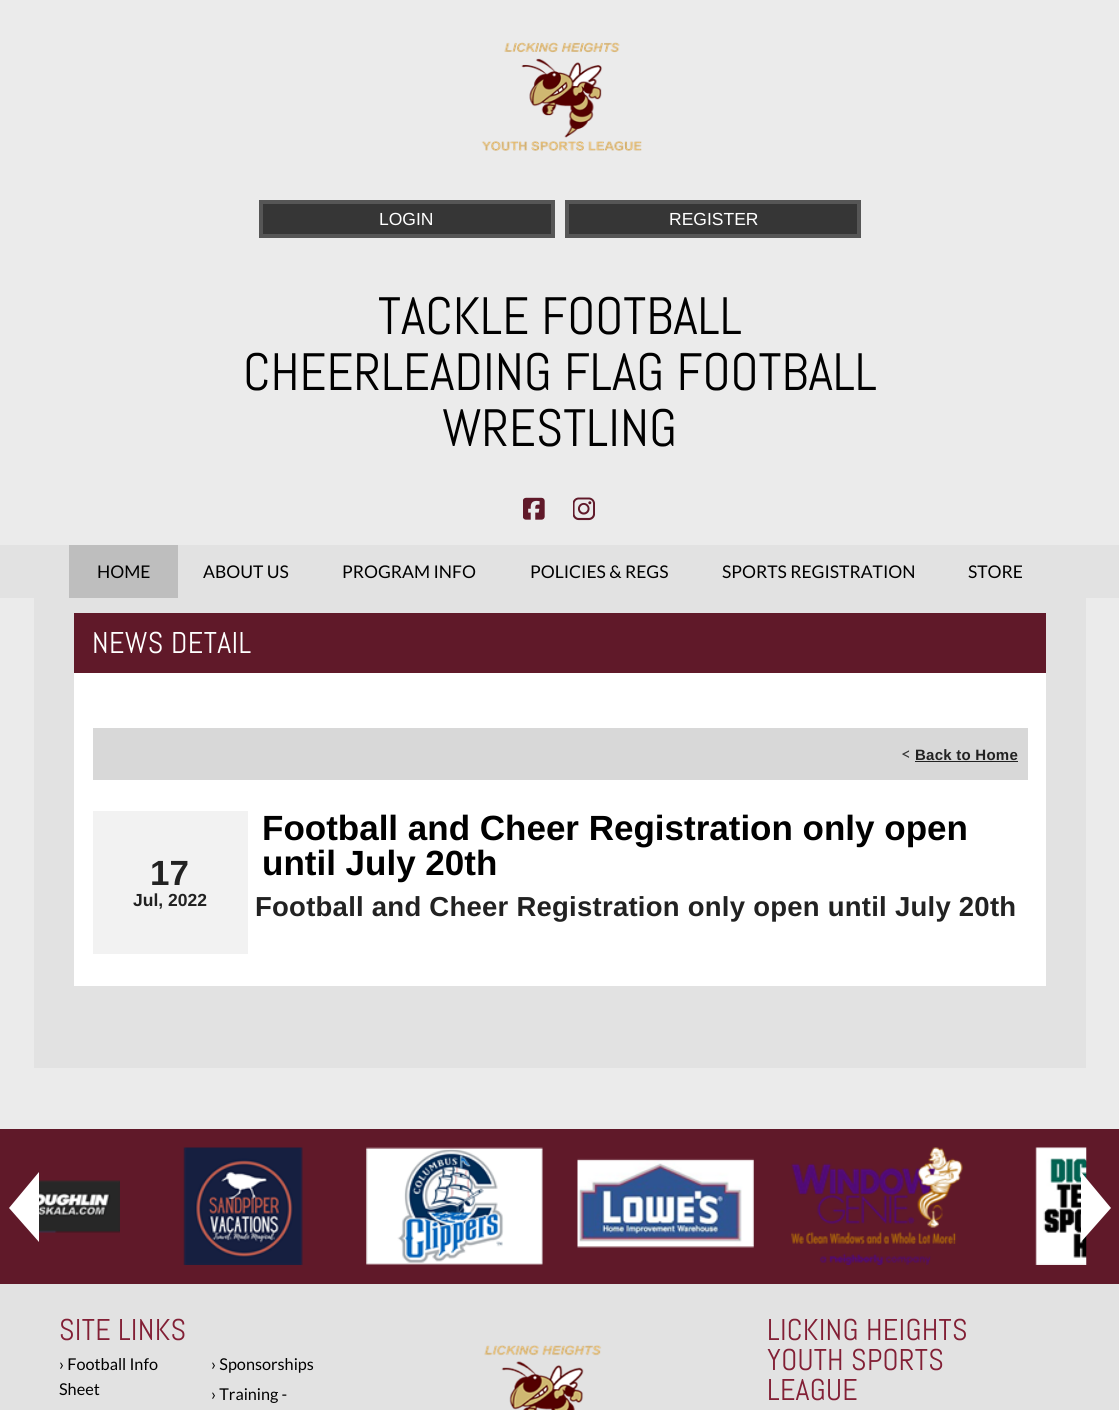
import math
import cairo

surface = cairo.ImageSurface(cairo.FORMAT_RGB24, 1119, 1410)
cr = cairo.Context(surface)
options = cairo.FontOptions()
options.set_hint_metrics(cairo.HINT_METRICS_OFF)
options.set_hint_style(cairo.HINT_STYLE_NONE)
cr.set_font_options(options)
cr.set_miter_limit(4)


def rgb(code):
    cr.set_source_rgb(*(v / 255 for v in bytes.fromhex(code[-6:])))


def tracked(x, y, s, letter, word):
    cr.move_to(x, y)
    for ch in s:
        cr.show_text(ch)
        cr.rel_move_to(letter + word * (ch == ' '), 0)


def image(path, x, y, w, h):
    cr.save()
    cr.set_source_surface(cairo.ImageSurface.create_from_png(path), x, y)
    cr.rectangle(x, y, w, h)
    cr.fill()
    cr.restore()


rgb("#ebebeb")
cr.paint()
image("img/1.png", 481, 42, 161, 109)
rgb("#363636")
cr.rectangle(261, 202, 292, 34)
cr.fill_preserve()
rgb("#565656")
cr.set_line_width(4)
cr.stroke()
rgb("#363636")
cr.rectangle(567, 202, 292, 34)
cr.fill_preserve()
rgb("#565656")
cr.stroke()
image("img/2.png", 523, 497, 22, 23)
image("img/3.png", 573, 497, 22, 24)
for x, y, w, h, color in [
    (0, 545, 1119, 53, "#e2e2e2"),
    (69, 545, 109, 53, "#bebebe"),
    (34, 598, 1052, 470, "#e2e2e2"),
    (74, 613, 972, 60, "#601929"),
    (74, 673, 972, 313, "#ffffff"),
    (93, 728, 935, 52, "#d8d8d8"),
    (915, 761, 103, 1, "#222222"),
    (93, 811, 155, 143, "#f2f2f2"),
    (0, 1129, 1119, 155, "#601929"),
]:
    rgb(color)
    cr.rectangle(x, y, w, h)
    cr.fill()
rgb("#ffffff")
cr.new_path()
cr.move_to(39, 1172)
cr.line_to(39, 1242)
cr.line_to(9, 1208)
cr.close_path()
cr.fill()
image("img/4.png", 39, 1180, 81, 53)
image("img/5.png", 183, 1147, 120, 118)
image("img/6.png", 366, 1147, 177, 118)
image("img/7.png", 577, 1158, 177, 90)
image("img/8.png", 791, 1147, 172, 118)
image("img/9.png", 1035, 1147, 52, 118)
cr.new_path()
cr.move_to(1081, 1242)
cr.line_to(1081, 1172)
cr.line_to(1111, 1208)
cr.close_path()
cr.fill()
rgb("#e2e2e2")
cr.rectangle(0, 1284, 1119, 126)
cr.fill()
image("img/10.png", 484, 1345, 118, 65)
cr.select_font_face("Liberation Sans")
cr.set_font_size(17.5)
rgb("#ffffff")
cr.move_to(379, 225)
cr.show_text("LOGIN")
cr.move_to(669, 225)
cr.show_text("REGISTER")
cr.select_font_face("Abel")
cr.set_font_size(52.5)
rgb("#000000")
for x, y, s in [
    (378, 334, "TACKLE FOOTBALL"),
    (243, 390, "CHEERLEADING FLAG FOOTBALL"),
    (442, 446, "WRESTLING"),
]:
    cr.move_to(x, y)
    cr.show_text(s)
cr.select_font_face("Lato")
cr.set_font_size(17.5)
for x, y, s in [
    (97, 578, "HOME"),
    (203, 578, "ABOUT US"),
    (342, 578, "PROGRAM INFO"),
    (530, 578, "POLICIES & REGS"),
    (722, 578, "SPORTS REGISTRATION"),
    (968, 578, "STORE"),
]:
    cr.move_to(x, y)
    cr.show_text(s)
cr.select_font_face("Abel")
cr.set_font_size(30)
rgb("#ffffff")
tracked(92, 653, "NEWS DETAIL", 0.4, 0)
cr.select_font_face("Lato")
cr.set_font_size(17.5)
rgb("#363636")
tracked(901, 760, "<", 0.25, 0)
cr.select_font_face("Liberation Sans", cairo.FONT_SLANT_NORMAL, cairo.FONT_WEIGHT_BOLD)
cr.set_font_size(15)
rgb("#222222")
tracked(915, 760, "Back to Home", 0.25, 0)
cr.set_font_size(35)
cr.move_to(150, 885)
cr.show_text("17")
cr.set_font_size(17.5)
cr.move_to(133, 906)
cr.show_text("Jul, 2022")
cr.set_font_size(35)
rgb("#000000")
cr.move_to(262, 840)
cr.show_text("Football and Cheer Registration only open")
cr.move_to(262, 875)
cr.show_text("until July 20th")
cr.set_font_size(27.5)
rgb("#222222")
tracked(255, 916, "Football and Cheer Registration only open until July 20th", 0.25, 0)
cr.select_font_face("Abel")
cr.set_font_size(30)
rgb("#821f35")
tracked(59, 1340, "SITE LINKS", 0.25, 0)
cr.select_font_face("Lato")
cr.set_font_size(16.25)
rgb("#000000")
for x, y, s in [
    (59, 1370, "› Football Info"),
    (59, 1395, "Sheet"),
    (211, 1370, "› Sponsorships"),
    (211, 1400, "› Training -"),
]:
    cr.move_to(x, y)
    cr.show_text(s)
cr.select_font_face("Abel")
cr.set_font_size(30)
rgb("#821f35")
for x, y, s in [
    (767, 1340, "LICKING HEIGHTS"),
    (767, 1370, "YOUTH SPORTS"),
    (767, 1400, "LEAGUE"),
]:
    tracked(x, y, s, 0.25, 0)
surface.write_to_png("page.png")
